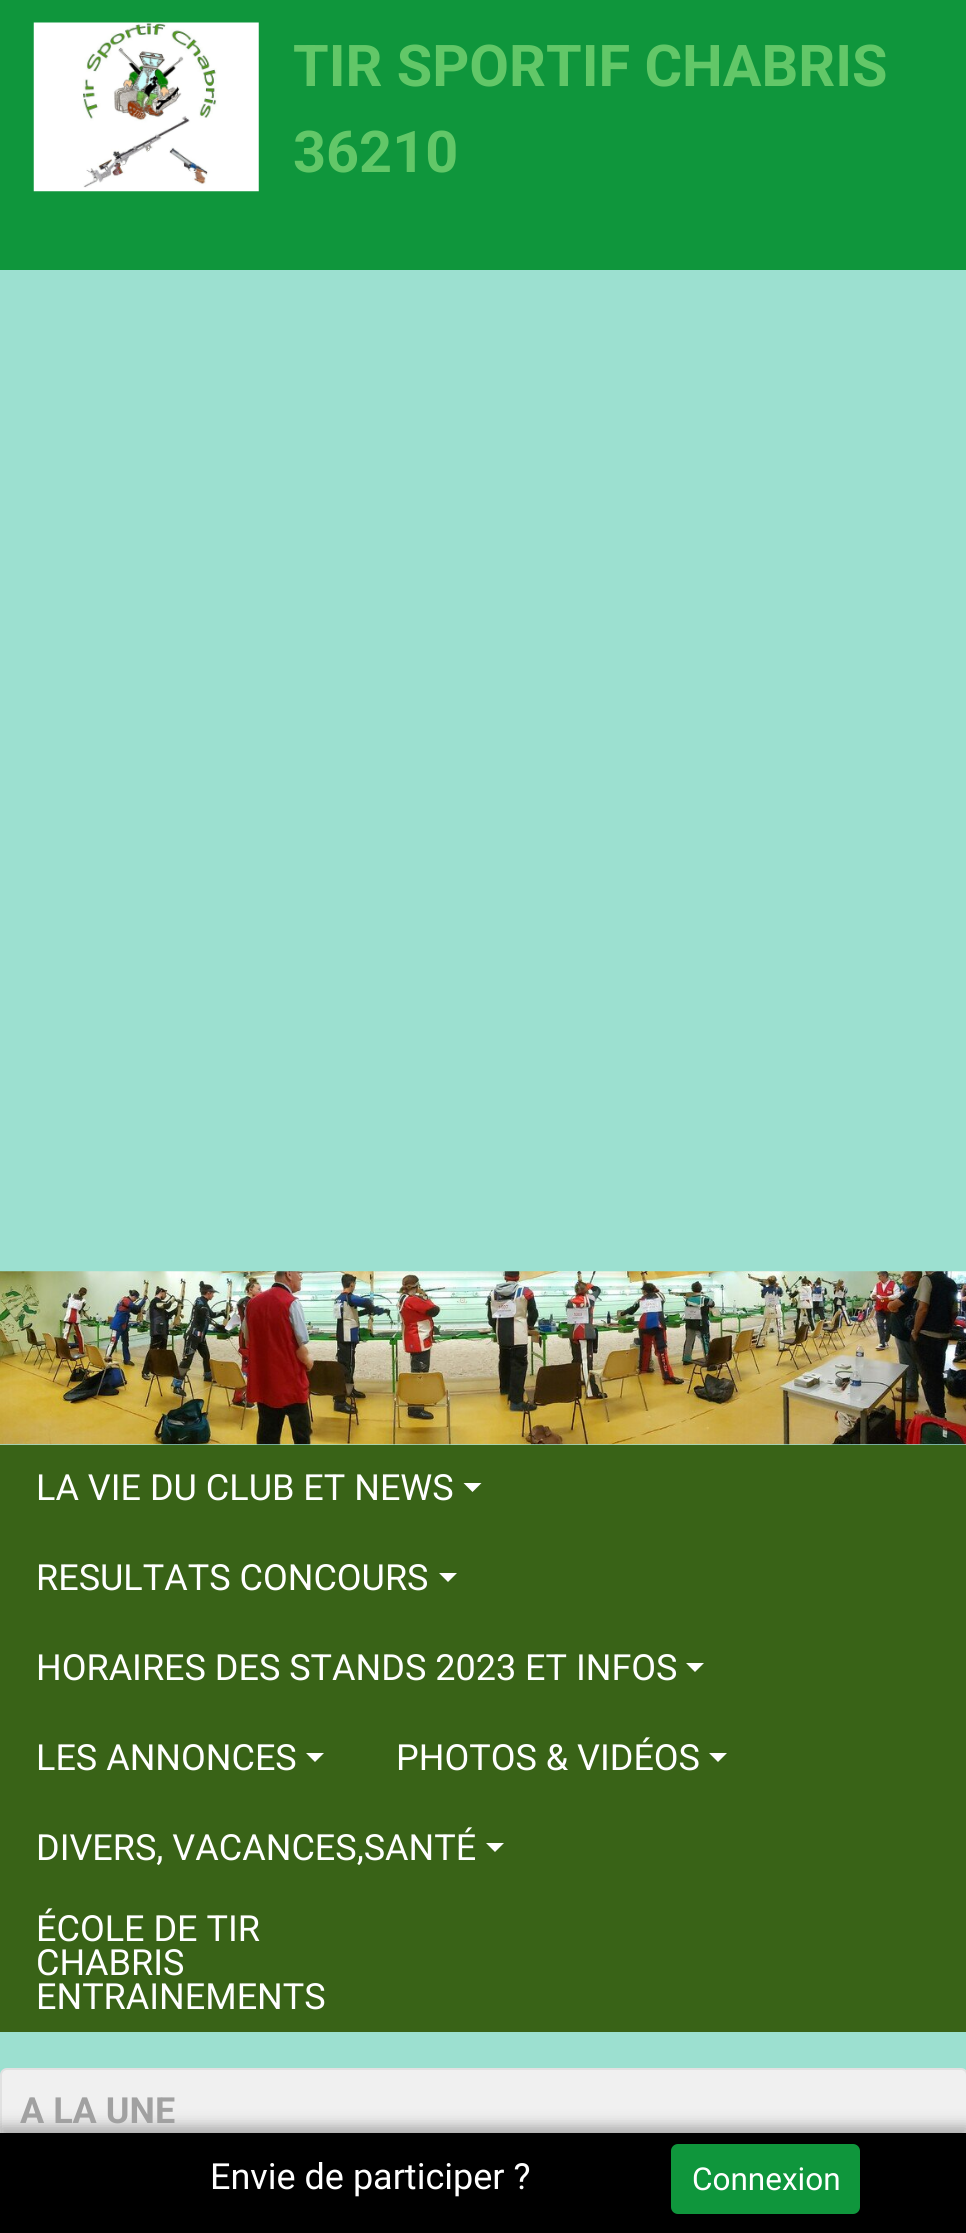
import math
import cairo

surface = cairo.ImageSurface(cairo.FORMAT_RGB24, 966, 2233)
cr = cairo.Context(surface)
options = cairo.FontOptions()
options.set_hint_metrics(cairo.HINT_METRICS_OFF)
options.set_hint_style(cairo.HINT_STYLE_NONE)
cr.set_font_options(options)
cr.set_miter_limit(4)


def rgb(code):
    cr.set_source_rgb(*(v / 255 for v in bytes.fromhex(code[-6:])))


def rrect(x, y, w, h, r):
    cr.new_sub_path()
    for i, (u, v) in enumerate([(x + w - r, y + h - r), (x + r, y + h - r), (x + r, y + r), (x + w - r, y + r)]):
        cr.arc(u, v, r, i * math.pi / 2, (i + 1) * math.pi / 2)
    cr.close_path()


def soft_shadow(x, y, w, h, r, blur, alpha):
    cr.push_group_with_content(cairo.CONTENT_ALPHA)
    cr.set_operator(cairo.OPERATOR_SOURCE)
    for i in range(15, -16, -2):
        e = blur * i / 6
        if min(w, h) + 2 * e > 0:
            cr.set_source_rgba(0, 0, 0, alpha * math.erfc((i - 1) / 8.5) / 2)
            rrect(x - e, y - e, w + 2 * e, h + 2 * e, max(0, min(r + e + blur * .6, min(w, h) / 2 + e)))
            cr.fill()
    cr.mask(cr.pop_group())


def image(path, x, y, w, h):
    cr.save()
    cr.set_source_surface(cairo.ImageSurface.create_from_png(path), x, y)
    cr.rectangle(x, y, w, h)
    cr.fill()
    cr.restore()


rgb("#9ce0d0")
cr.paint()
rgb("#0f963c")
cr.rectangle(0, 0, 966, 270)
cr.fill()
image("img/1.png", 33, 22, 226, 170)
image("img/2.png", 0, 1271, 966, 174)
rgb("#396317")
cr.rectangle(0, 1445, 966, 587)
cr.fill()
rgb("#ffffff")
cr.new_path()
cr.move_to(463.5, 1483)
cr.line_to(481.5, 1483)
cr.line_to(472.5, 1492)
cr.close_path()
cr.fill()
cr.new_path()
cr.move_to(439, 1573)
cr.line_to(457, 1573)
cr.line_to(448, 1582)
cr.close_path()
cr.fill()
cr.new_path()
cr.move_to(686, 1663)
cr.line_to(704, 1663)
cr.line_to(695, 1672)
cr.close_path()
cr.fill()
cr.new_path()
cr.move_to(306, 1753)
cr.line_to(324, 1753)
cr.line_to(315, 1762)
cr.close_path()
cr.fill()
cr.new_path()
cr.move_to(709, 1753)
cr.line_to(727, 1753)
cr.line_to(718, 1762)
cr.close_path()
cr.fill()
cr.new_path()
cr.move_to(486, 1843)
cr.line_to(504, 1843)
cr.line_to(495, 1852)
cr.close_path()
cr.fill()
rgb("#f0f0f0")
rrect(1, 2069, 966, 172, 6)
cr.fill_preserve()
rgb("#e1e1e1")
cr.stroke()
rgb("#aaaaaa")
soft_shadow(0, 2126, 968, 102, 0, 7, 1)
rgb("#000000")
cr.rectangle(0, 2133, 966, 100)
cr.fill()
rgb("#0f963c")
rrect(672, 2145, 187, 68, 6)
cr.fill_preserve()
cr.stroke()
cr.select_font_face("Roboto", cairo.FONT_SLANT_NORMAL, cairo.FONT_WEIGHT_BOLD)
cr.set_font_size(57.6)
rgb("#62c768")
cr.move_to(293, 86)
cr.show_text("TIR SPORTIF CHABRIS")
cr.move_to(293, 172)
cr.show_text("36210")
cr.select_font_face("Roboto")
cr.set_font_size(36)
rgb("#ffffff")
for x, y, s in [
    (36, 1500, "LA VIE DU CLUB ET NEWS"),
    (36, 1590, "RESULTATS CONCOURS"),
    (36, 1680, "HORAIRES DES STANDS 2023 ET INFOS"),
    (36, 1770, "LES ANNONCES"),
    (396, 1770, "PHOTOS & VIDÉOS"),
    (36, 1860, "DIVERS, VACANCES,SANTÉ"),
    (36, 1941, "ÉCOLE DE TIR"),
    (36, 1975, "CHABRIS"),
    (36, 2009, "ENTRAINEMENTS"),
]:
    cr.move_to(x, y)
    cr.show_text(s)
cr.select_font_face("Roboto", cairo.FONT_SLANT_NORMAL, cairo.FONT_WEIGHT_BOLD)
rgb("#a1a1a1")
cr.move_to(20, 2123)
cr.show_text("A LA UNE")
cr.select_font_face("Roboto")
rgb("#ffffff")
cr.move_to(210, 2189)
cr.show_text("Envie de participer ?")
cr.set_font_size(31.5)
cr.move_to(692, 2190)
cr.show_text("Connexion")
surface.write_to_png("page.png")
